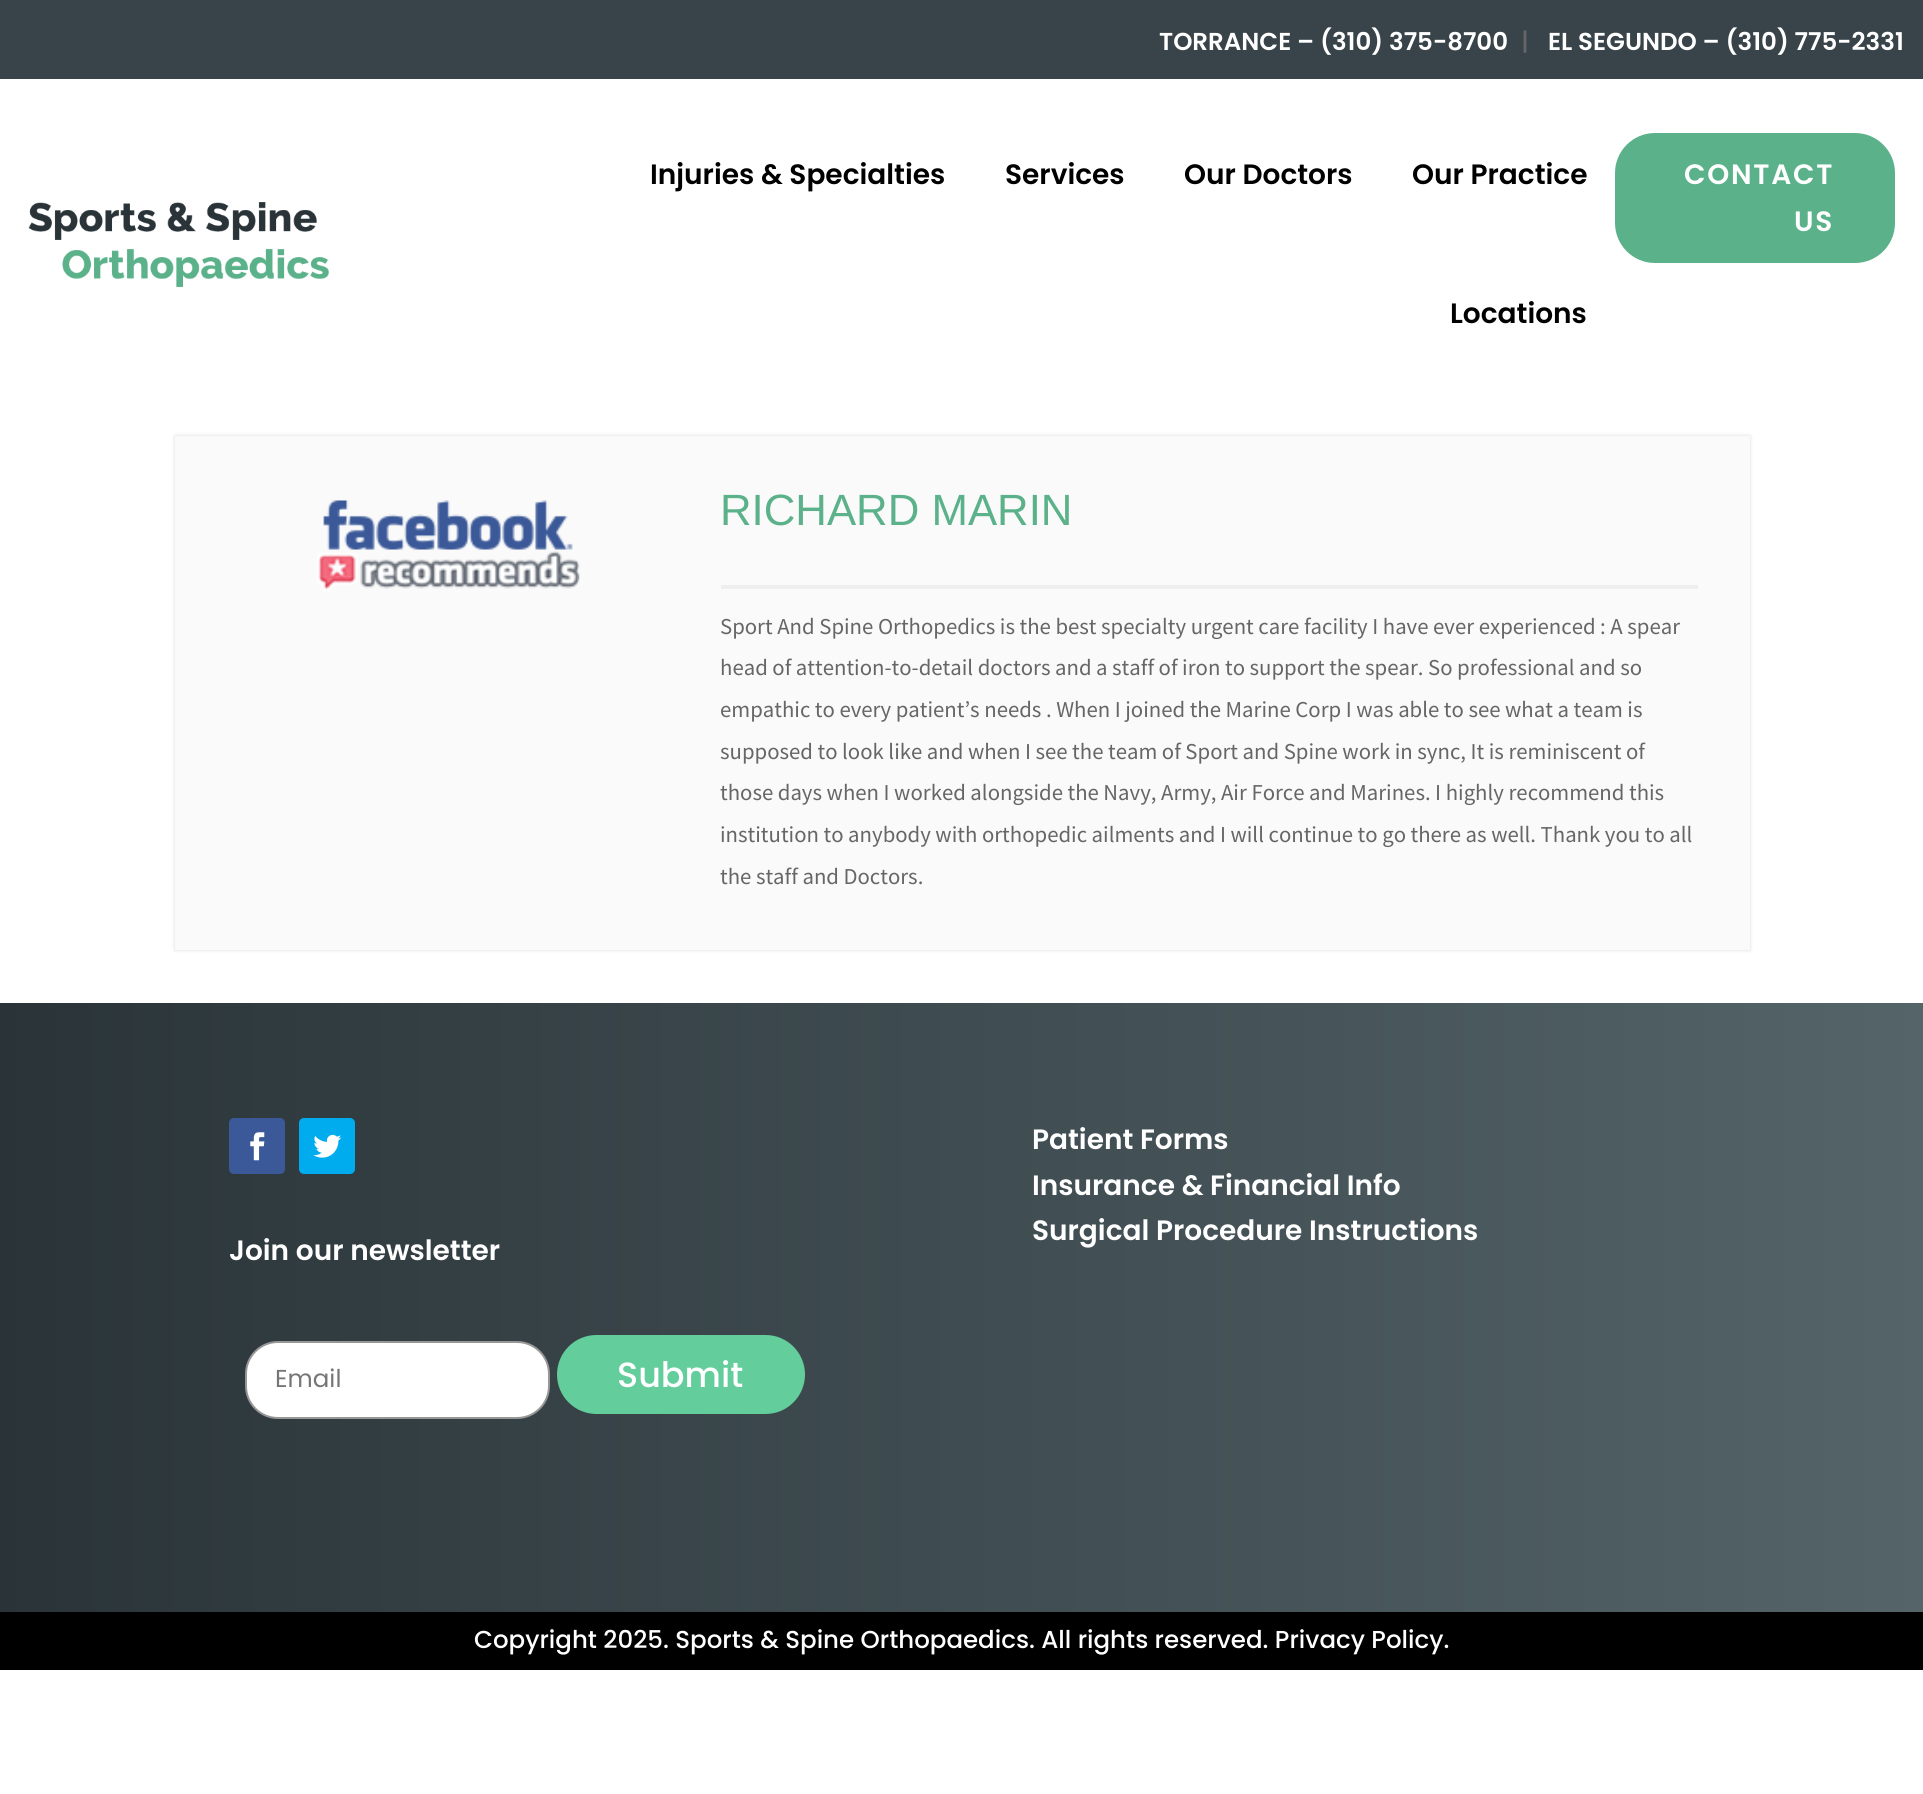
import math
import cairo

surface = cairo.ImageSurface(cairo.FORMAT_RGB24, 1923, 1794)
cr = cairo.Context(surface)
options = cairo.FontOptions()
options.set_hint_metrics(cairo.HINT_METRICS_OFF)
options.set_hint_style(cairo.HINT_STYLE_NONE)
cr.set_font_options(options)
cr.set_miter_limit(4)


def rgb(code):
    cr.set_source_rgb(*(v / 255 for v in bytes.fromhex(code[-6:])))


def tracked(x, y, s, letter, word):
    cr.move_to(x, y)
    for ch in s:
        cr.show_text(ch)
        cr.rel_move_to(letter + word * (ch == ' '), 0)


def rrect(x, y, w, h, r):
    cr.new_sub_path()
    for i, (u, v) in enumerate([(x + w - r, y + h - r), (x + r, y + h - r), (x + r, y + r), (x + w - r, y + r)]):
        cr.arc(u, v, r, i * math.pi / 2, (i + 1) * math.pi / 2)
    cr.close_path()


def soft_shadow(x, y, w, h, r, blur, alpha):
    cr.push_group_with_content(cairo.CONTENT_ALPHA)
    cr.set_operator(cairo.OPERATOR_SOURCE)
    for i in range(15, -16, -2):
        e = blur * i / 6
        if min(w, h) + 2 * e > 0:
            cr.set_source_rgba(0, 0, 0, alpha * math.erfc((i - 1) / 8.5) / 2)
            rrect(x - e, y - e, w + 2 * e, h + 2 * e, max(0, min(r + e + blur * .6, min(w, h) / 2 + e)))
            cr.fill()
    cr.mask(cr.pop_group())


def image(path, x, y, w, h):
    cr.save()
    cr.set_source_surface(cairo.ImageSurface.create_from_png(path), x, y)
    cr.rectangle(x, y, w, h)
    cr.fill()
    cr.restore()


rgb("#ffffff")
cr.paint()
rgb("#384449")
cr.rectangle(0, 0, 1923, 79)
cr.fill()
image("img/1.png", 28, 202, 301, 85)
rgb("#5bb189")
rrect(1615, 133, 280, 130, 40)
cr.fill()
rgb("#000000")
soft_shadow(175, 436, 1575, 514, 0, 2, 0.15)
rgb("#fafafa")
cr.rectangle(175, 436, 1575, 514)
cr.fill()
image("img/2.png", 317, 500, 263, 91)
rgb("#eeeeee")
cr.rectangle(721, 585, 977, 4)
cr.fill()
gradient = cairo.LinearGradient(1923, 1307, 0, 1307)
gradient.add_color_stop_rgba(0, 0.329, 0.392, 0.412, 1)
gradient.add_color_stop_rgba(1, 0.165, 0.204, 0.22, 1)
cr.set_source(gradient)
cr.rectangle(0, 1003, 1923, 609)
cr.fill()
rgb("#3b5998")
rrect(229, 1118, 56, 56, 5)
cr.fill()
image("img/3.png", 250, 1132, 15, 29)
rgb("#00aced")
rrect(299, 1118, 56, 56, 5)
cr.fill()
image("img/4.png", 313, 1134, 29, 24)
rgb("#ffffff")
rrect(246, 1342, 303, 76, 32)
cr.fill_preserve()
rgb("#979797")
cr.stroke()
rgb("#64cd9c")
rrect(557, 1335, 248, 79, 39.5)
cr.fill()
rgb("#000000")
cr.rectangle(0, 1612, 1923, 58)
cr.fill()
cr.select_font_face("Poppins SemiBold")
cr.set_font_size(24.5)
rgb("#ffffff")
cr.move_to(1159, 50)
cr.show_text("TORRANCE – (310) 375-8700")
cr.select_font_face("Poppins Medium")
rgb("#666666")
cr.move_to(1521, 50)
cr.show_text("|")
cr.select_font_face("Poppins SemiBold")
rgb("#ffffff")
cr.move_to(1548, 50)
cr.show_text("EL SEGUNDO – (310) 775-2331")
cr.set_font_size(28)
rgb("#000000")
for x, y, s in [
    (650, 184, "Injuries & Specialties"),
    (1005, 184, "Services"),
    (1184, 184, "Our Doctors"),
    (1412, 184, "Our Practice"),
    (1450, 323, "Locations"),
]:
    cr.move_to(x, y)
    cr.show_text(s)
rgb("#ffffff")
tracked(1684, 184, "CONTACT", 1.75, 0)
tracked(1794, 231, "US", 1.75, 0)
cr.select_font_face("Liberation Sans")
cr.set_font_size(43.75)
rgb("#5bb189")
cr.move_to(720, 525)
cr.show_text("RICHARD MARIN")
cr.select_font_face("Source Sans Pro")
cr.set_font_size(22.75)
rgb("#666666")
for x, y, s in [
    (720, 634, "Sport And Spine Orthopedics is the best specialty urgent care facility I have ever experienced : A spear"),
    (720, 675, "head of attention-to-detail doctors and a staff of iron to support the spear. So professional and so"),
    (720, 717, "empathic to every patient’s needs . When I joined the Marine Corp I was able to see what a team is"),
    (720, 759, "supposed to look like and when I see the team of Sport and Spine work in sync, It is reminiscent of"),
    (720, 800, "those days when I worked alongside the Navy, Army, Air Force and Marines. I highly recommend this"),
    (720, 842, "institution to anybody with orthopedic ailments and I will continue to go there as well. Thank you to all"),
    (720, 884, "the staff and Doctors."),
]:
    cr.move_to(x, y)
    cr.show_text(s)
cr.select_font_face("Poppins SemiBold")
cr.set_font_size(28)
rgb("#ffffff")
for x, y, s in [
    (1032, 1149, "Patient Forms"),
    (1032, 1195, "Insurance & Financial Info"),
    (1032, 1240, "Surgical Procedure Instructions"),
    (229, 1260, "Join our newsletter"),
]:
    cr.move_to(x, y)
    cr.show_text(s)
cr.select_font_face("Poppins")
cr.set_font_size(24.5)
rgb("#757575")
cr.move_to(275, 1387)
cr.show_text("Email")
cr.select_font_face("Poppins Medium")
cr.set_font_size(35)
rgb("#ffffff")
cr.move_to(617, 1387)
cr.show_text("Submit")
cr.set_font_size(24.5)
cr.move_to(474, 1648)
cr.show_text("Copyright 2025. Sports & Spine Orthopaedics. All rights reserved. Privacy Policy.")
surface.write_to_png("page.png")
